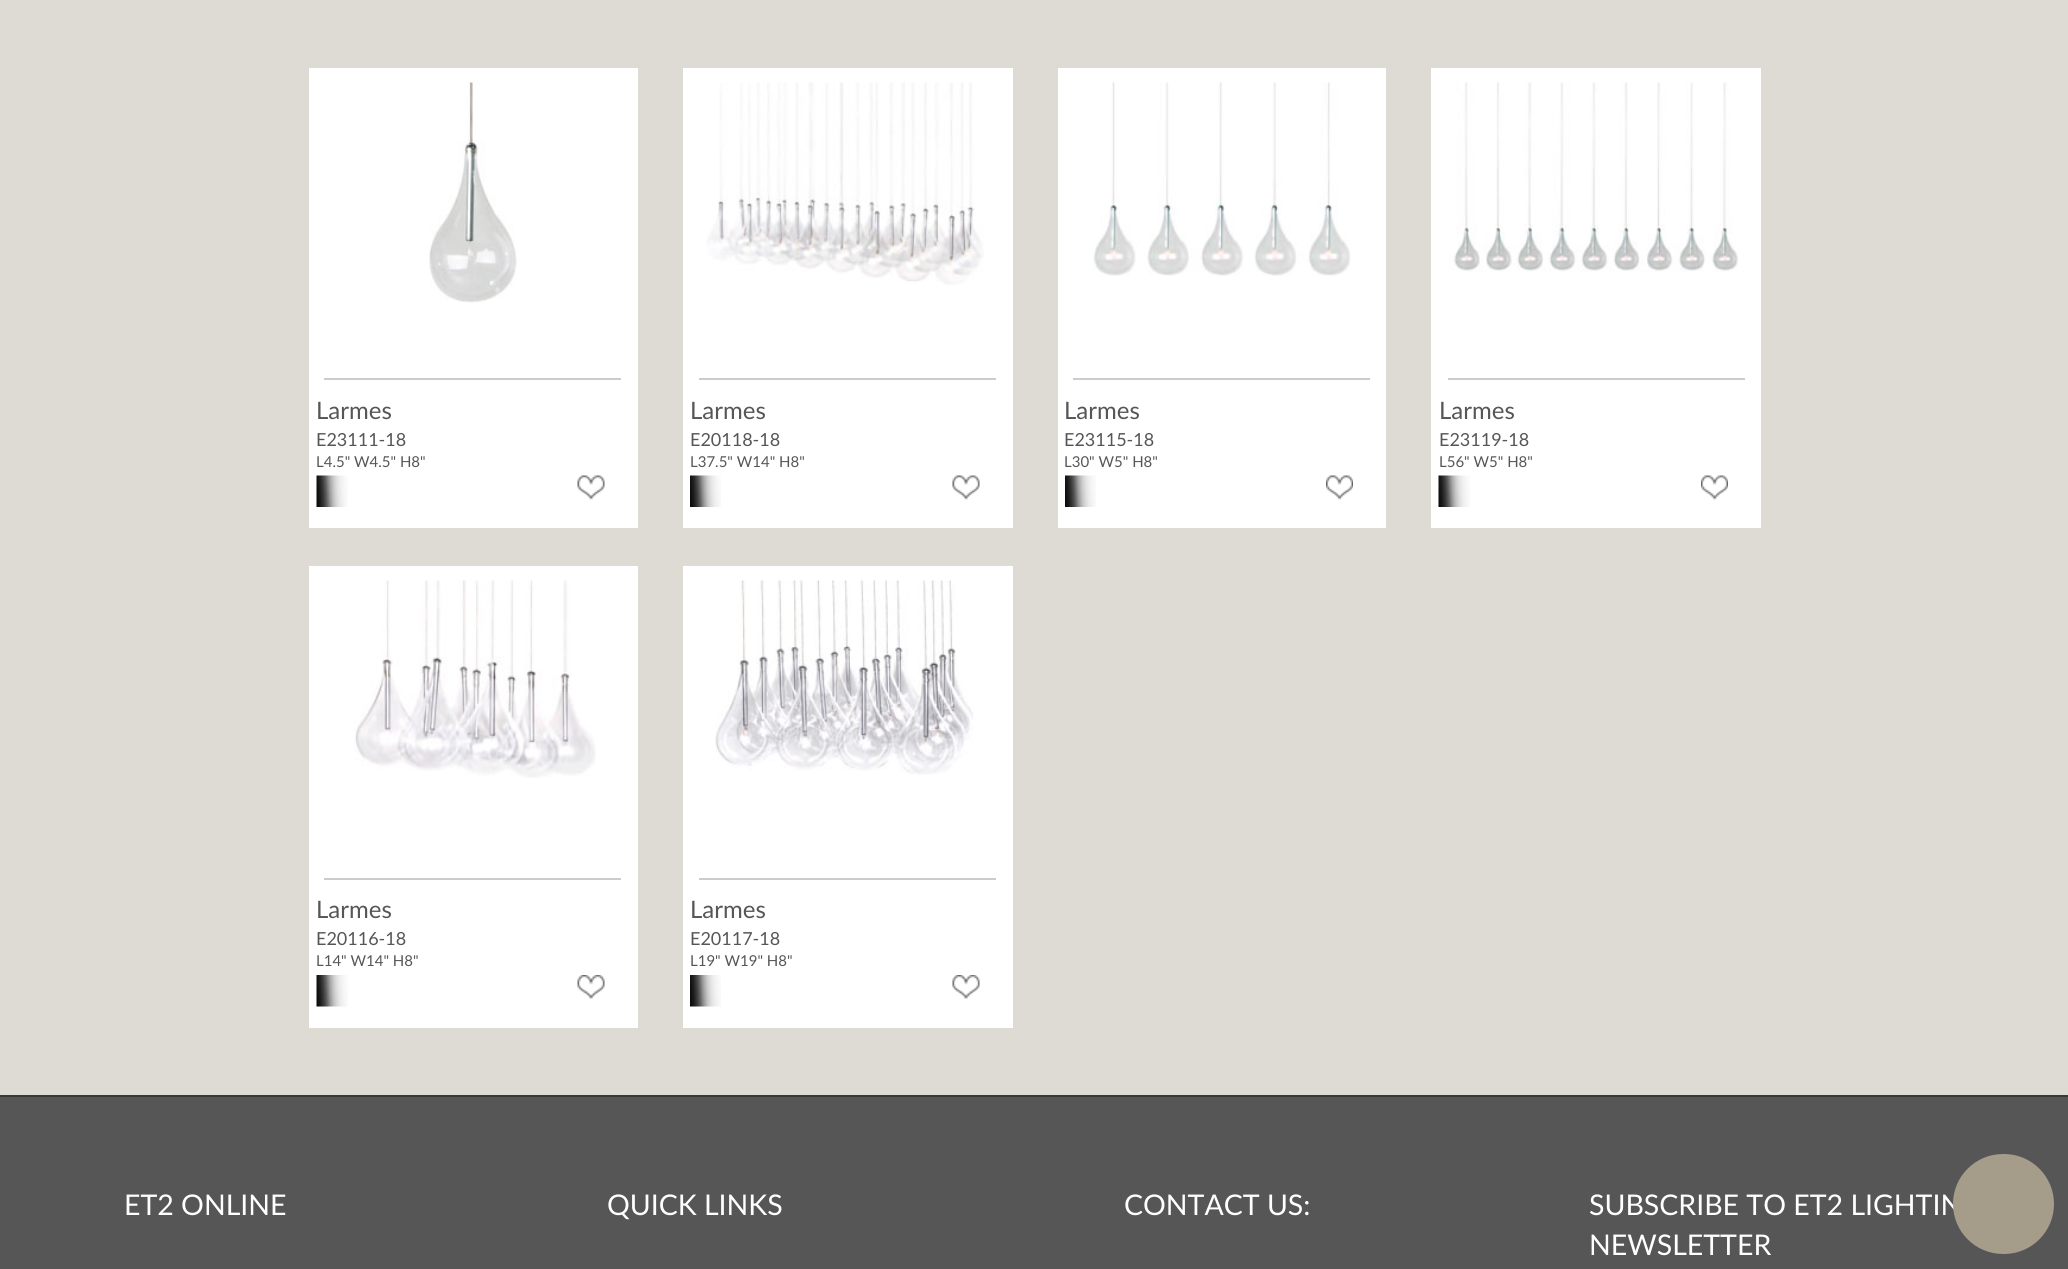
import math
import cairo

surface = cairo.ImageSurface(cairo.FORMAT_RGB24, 2068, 1269)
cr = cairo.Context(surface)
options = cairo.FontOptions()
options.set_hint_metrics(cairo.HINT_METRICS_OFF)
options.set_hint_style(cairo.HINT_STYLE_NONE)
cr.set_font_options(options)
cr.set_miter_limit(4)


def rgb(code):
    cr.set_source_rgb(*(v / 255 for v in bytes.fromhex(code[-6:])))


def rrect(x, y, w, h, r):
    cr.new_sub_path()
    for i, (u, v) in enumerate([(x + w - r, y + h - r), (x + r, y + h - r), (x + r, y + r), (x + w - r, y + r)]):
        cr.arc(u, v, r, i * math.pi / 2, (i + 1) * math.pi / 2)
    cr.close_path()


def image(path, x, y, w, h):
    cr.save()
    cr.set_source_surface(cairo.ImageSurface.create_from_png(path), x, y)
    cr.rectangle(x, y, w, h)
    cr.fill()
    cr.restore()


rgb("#dddbd4")
cr.paint()
rgb("#ffffff")
cr.rectangle(309, 68, 329, 460)
cr.fill()
image("img/1.png", 429, 82, 88, 221)
rgb("#cccccc")
cr.rectangle(324, 378, 297, 2)
cr.fill()
image("img/2.png", 316, 475, 32, 32)
image("img/3.png", 577, 475, 28, 25)
rgb("#ffffff")
cr.rectangle(683, 68, 330, 460)
cr.fill()
image("img/4.png", 706, 82, 278, 203)
rgb("#cccccc")
cr.rectangle(699, 378, 297, 2)
cr.fill()
image("img/5.png", 690, 475, 31, 32)
image("img/6.png", 952, 475, 28, 25)
rgb("#ffffff")
cr.rectangle(1058, 68, 328, 460)
cr.fill()
image("img/7.png", 1092, 82, 259, 194)
rgb("#cccccc")
cr.rectangle(1073, 378, 297, 2)
cr.fill()
image("img/5.png", 1065, 475, 31, 32)
image("img/8.png", 1326, 475, 27, 25)
rgb("#ffffff")
cr.rectangle(1431, 68, 330, 460)
cr.fill()
image("img/9.png", 1449, 82, 290, 190)
rgb("#cccccc")
cr.rectangle(1448, 378, 297, 2)
cr.fill()
image("img/10.png", 1438, 475, 32, 32)
image("img/11.png", 1701, 475, 27, 25)
rgb("#ffffff")
cr.rectangle(309, 566, 329, 462)
cr.fill()
image("img/12.png", 354, 580, 242, 198)
rgb("#cccccc")
cr.rectangle(324, 878, 297, 2)
cr.fill()
image("img/13.png", 316, 975, 32, 32)
image("img/14.png", 577, 975, 28, 24)
rgb("#ffffff")
cr.rectangle(683, 566, 330, 462)
cr.fill()
image("img/15.png", 715, 580, 259, 195)
rgb("#cccccc")
cr.rectangle(699, 878, 297, 2)
cr.fill()
image("img/16.png", 690, 975, 31, 32)
image("img/17.png", 952, 975, 28, 24)
rgb("#565656")
cr.rectangle(0, 1097, 2068, 172)
cr.fill()
rgb("#383838")
cr.rectangle(0, 1095, 2068, 2)
cr.fill()
cr.select_font_face("Lato")
cr.set_font_size(24)
rgb("#565656")
cr.move_to(316, 419)
cr.show_text("Larmes")
cr.set_font_size(18)
cr.move_to(316, 446)
cr.show_text("E23111-18")
cr.set_font_size(15)
cr.move_to(316, 467)
cr.show_text("L4.5\" W4.5\" H8\"")
cr.set_font_size(24)
cr.move_to(690, 419)
cr.show_text("Larmes")
cr.set_font_size(18)
cr.move_to(690, 446)
cr.show_text("E20118-18")
cr.set_font_size(15)
cr.move_to(690, 467)
cr.show_text("L37.5\" W14\" H8\"")
cr.set_font_size(24)
cr.move_to(1064, 419)
cr.show_text("Larmes")
cr.set_font_size(18)
cr.move_to(1064, 446)
cr.show_text("E23115-18")
cr.set_font_size(15)
cr.move_to(1064, 467)
cr.show_text("L30\" W5\" H8\"")
cr.set_font_size(24)
cr.move_to(1439, 419)
cr.show_text("Larmes")
cr.set_font_size(18)
cr.move_to(1439, 446)
cr.show_text("E23119-18")
cr.set_font_size(15)
cr.move_to(1439, 467)
cr.show_text("L56\" W5\" H8\"")
cr.set_font_size(24)
cr.move_to(316, 918)
cr.show_text("Larmes")
cr.set_font_size(18)
cr.move_to(316, 945)
cr.show_text("E20116-18")
cr.set_font_size(15)
cr.move_to(316, 966)
cr.show_text("L14\" W14\" H8\"")
cr.set_font_size(24)
cr.move_to(690, 918)
cr.show_text("Larmes")
cr.set_font_size(18)
cr.move_to(690, 945)
cr.show_text("E20117-18")
cr.set_font_size(15)
cr.move_to(690, 966)
cr.show_text("L19\" W19\" H8\"")
cr.set_font_size(28.5)
rgb("#ffffff")
for x, y, s in [
    (124, 1215, "ET2 ONLINE"),
    (607, 1215, "QUICK LINKS"),
    (1124, 1215, "CONTACT US:"),
    (1589, 1215, "SUBSCRIBE TO ET2 LIGHTIN"),
    (1589, 1255, "NEWSLETTER"),
]:
    cr.move_to(x, y)
    cr.show_text(s)
rgb("#a59c8a")
rrect(1953, 1154, 101, 100, 50)
cr.fill()
surface.write_to_png("page.png")
